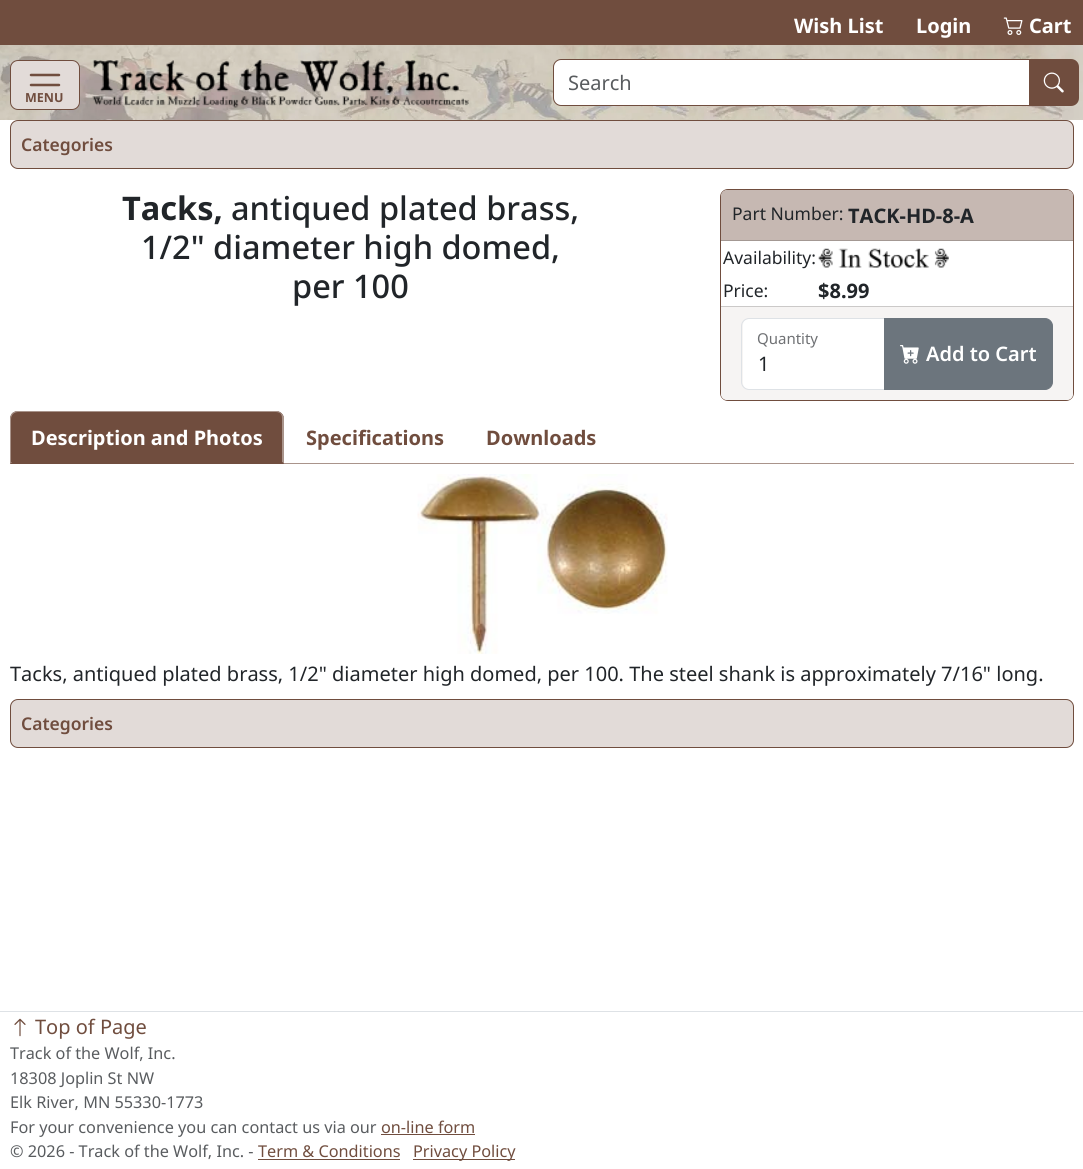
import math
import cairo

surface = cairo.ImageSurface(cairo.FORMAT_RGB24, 1083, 1169)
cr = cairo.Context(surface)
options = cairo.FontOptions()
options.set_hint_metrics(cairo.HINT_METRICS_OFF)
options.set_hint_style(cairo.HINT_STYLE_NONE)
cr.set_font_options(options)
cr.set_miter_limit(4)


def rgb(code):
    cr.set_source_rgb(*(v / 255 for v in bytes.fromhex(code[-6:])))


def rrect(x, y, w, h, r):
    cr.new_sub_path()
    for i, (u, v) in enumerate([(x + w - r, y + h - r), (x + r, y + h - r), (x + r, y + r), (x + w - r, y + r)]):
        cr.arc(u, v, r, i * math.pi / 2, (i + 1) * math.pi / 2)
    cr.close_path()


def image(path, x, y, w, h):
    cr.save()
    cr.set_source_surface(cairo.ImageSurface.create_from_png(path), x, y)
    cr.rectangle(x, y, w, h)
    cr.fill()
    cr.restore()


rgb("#ffffff")
cr.paint()
rgb("#704d3e")
cr.rectangle(0, 0, 1083, 45)
cr.fill()
image("img/1.png", 1003, 17, 20, 18)
image("img/2.png", 0, 45, 1083, 75)
rgb("#ffffff")
cr.new_path()
cr.move_to(560, 60)
cr.line_to(1029, 60)
cr.line_to(1029, 105)
cr.line_to(560, 105)
cr.curve_to(556.5, 105, 554, 102.5, 554, 99)
cr.line_to(554, 66)
cr.curve_to(554, 62.5, 556.5, 60, 560, 60)
cr.close_path()
cr.fill()
cr.new_path()
cr.move_to(561, 59.5)
cr.line_to(1029.5, 59.5)
cr.line_to(1029.5, 105.5)
cr.line_to(561, 105.5)
cr.curve_to(557, 105.5, 553.5, 102, 553.5, 98)
cr.line_to(553.5, 67)
cr.curve_to(553.5, 63, 557, 59.5, 561, 59.5)
cr.close_path()
rgb("#704d3e")
cr.set_line_width(1)
cr.stroke()
cr.new_path()
cr.move_to(1029, 59)
cr.line_to(1071, 59)
cr.curve_to(1075.5, 59, 1079, 62.5, 1079, 67)
cr.line_to(1079, 98)
cr.curve_to(1079, 102.5, 1075.5, 106, 1071, 106)
cr.line_to(1029, 106)
cr.close_path()
cr.fill()
image("img/3.png", 1043, 72, 21, 21)
rgb("#e2dbd8")
rrect(10.5, 60.5, 69, 49, 7.5)
cr.fill_preserve()
rgb("#704d3e")
cr.stroke()
cr.new_path()
cr.move_to(31, 75)
cr.line_to(59, 75)
cr.move_to(31, 85)
cr.line_to(59, 85)
cr.move_to(31, 95)
cr.line_to(59, 95)
cr.set_line_width(2.5)
cr.set_line_cap(cairo.LINE_CAP_ROUND)
cr.stroke()
rgb("#e2dbd8")
rrect(25, 90, 39, 13, 6.5)
cr.fill()
image("img/4.png", 92, 60, 377, 48)
rrect(10.5, 120.5, 1063, 48, 7.5)
cr.fill_preserve()
rgb("#704d3e")
cr.set_line_width(1)
cr.set_line_cap(cairo.LINE_CAP_BUTT)
cr.stroke()
rrect(720.5, 189.5, 353, 211, 7.5)
cr.stroke()
rgb("#c6b8b2")
cr.new_path()
cr.move_to(727, 190)
cr.line_to(1067, 190)
cr.curve_to(1070.5, 190, 1073, 192.5, 1073, 196)
cr.line_to(1073, 241)
cr.line_to(721, 241)
cr.line_to(721, 196)
cr.curve_to(721, 192.5, 723.5, 190, 727, 190)
cr.close_path()
cr.fill()
rgb("#a39893")
cr.rectangle(721, 240, 352, 1)
cr.fill()
image("img/5.png", 818, 248, 131, 20)
rgb("#f6f4f3")
cr.new_path()
cr.move_to(721, 306)
cr.line_to(1073, 306)
cr.line_to(1073, 394)
cr.curve_to(1073, 397.5, 1070.5, 400, 1067, 400)
cr.line_to(727, 400)
cr.curve_to(723.5, 400, 721, 397.5, 721, 394)
cr.close_path()
cr.fill()
rgb("#cbc9c8")
cr.rectangle(721, 306, 352, 1)
cr.fill()
rgb("#ffffff")
cr.new_path()
cr.move_to(749, 319)
cr.line_to(884, 319)
cr.line_to(884, 389)
cr.line_to(749, 389)
cr.curve_to(745.5, 389, 743, 386.5, 743, 383)
cr.line_to(743, 325)
cr.curve_to(743, 321.5, 745.5, 319, 749, 319)
cr.close_path()
cr.fill()
cr.new_path()
cr.move_to(749, 318.5)
cr.line_to(884.5, 318.5)
cr.line_to(884.5, 389.5)
cr.line_to(749, 389.5)
cr.curve_to(745, 389.5, 741.5, 386, 741.5, 382)
cr.line_to(741.5, 326)
cr.curve_to(741.5, 322, 745, 318.5, 749, 318.5)
cr.close_path()
rgb("#dee2e6")
cr.stroke()
rgb("#6c757d")
cr.new_path()
cr.move_to(884.5, 318.5)
cr.line_to(1045, 318.5)
cr.curve_to(1049, 318.5, 1052.5, 322, 1052.5, 326)
cr.line_to(1052.5, 382)
cr.curve_to(1052.5, 386, 1049, 389.5, 1045, 389.5)
cr.line_to(884.5, 389.5)
cr.close_path()
cr.fill_preserve()
cr.stroke()
image("img/6.png", 900, 345, 19, 19)
rgb("#a9948b")
cr.rectangle(284, 463, 790, 1)
cr.fill()
rgb("#704d3e")
cr.new_path()
cr.move_to(18, 411)
cr.line_to(276, 411)
cr.curve_to(280.5, 411, 284, 414.5, 284, 419)
cr.line_to(284, 464)
cr.line_to(10, 464)
cr.line_to(10, 419)
cr.curve_to(10, 414.5, 13.5, 411, 18, 411)
cr.close_path()
cr.fill()
rgb("#a9948b")
cr.new_path()
cr.move_to(18, 412)
cr.curve_to(16, 412, 14, 413, 13, 414)
cr.line_to(12, 413)
cr.line_to(16, 411)
cr.line_to(278, 411)
cr.line_to(282, 414)
cr.line_to(281, 414)
cr.curve_to(280, 413, 278, 412, 276, 412)
cr.close_path()
cr.fill()
cr.new_path()
cr.move_to(282, 414)
cr.line_to(284, 417)
cr.line_to(284, 464)
cr.line_to(282, 462)
cr.line_to(282, 419)
cr.curve_to(282, 417, 282, 416, 281, 414)
cr.close_path()
cr.fill()
rgb("#704d3e")
cr.new_path()
cr.move_to(284, 464)
cr.line_to(282, 462)
cr.line_to(12, 462)
cr.line_to(10, 464)
cr.close_path()
cr.fill()
rgb("#a9948b")
cr.new_path()
cr.move_to(10, 464)
cr.line_to(12, 462)
cr.line_to(11, 462)
cr.line_to(11, 419)
cr.curve_to(11, 417, 12, 415, 13, 414)
cr.line_to(12, 413)
cr.curve_to(11, 415, 10, 417, 10, 419)
cr.close_path()
cr.fill()
image("img/7.png", 417, 474, 251, 180)
rgb("#e2dbd8")
rrect(10.5, 699.5, 1063, 48, 7.5)
cr.fill_preserve()
rgb("#704d3e")
cr.stroke()
rgb("#dee2e6")
cr.rectangle(0, 1011, 1083, 1)
cr.fill()
image("img/8.png", 14, 1018, 12, 19)
for x, y, w, h, color in [
    (381, 1134, 94, 1, "#704d3e"),
    (258, 1159, 142, 1, "#704d3e"),
    (413, 1159, 102, 1, "#704d3e"),
]:
    rgb(color)
    cr.rectangle(x, y, w, h)
    cr.fill()
cr.select_font_face("Noto Sans", cairo.FONT_SLANT_NORMAL, cairo.FONT_WEIGHT_BOLD)
cr.set_font_size(20)
rgb("#ffffff")
for x, y, s in [
    (794, 33, "Wish List"),
    (916, 33, "Login"),
    (1029, 33, "Cart"),
]:
    cr.move_to(x, y)
    cr.show_text(s)
cr.select_font_face("Noto Sans")
rgb("#595c5f")
cr.move_to(568, 90)
cr.show_text("Search")
cr.select_font_face("Noto Sans", cairo.FONT_SLANT_NORMAL, cairo.FONT_WEIGHT_BOLD)
cr.set_font_size(12.5)
rgb("#704d3e")
cr.move_to(25, 102)
cr.show_text("MENU")
cr.select_font_face("Noto Sans SemiBold")
cr.set_font_size(17.5)
cr.move_to(21, 151)
cr.show_text("Categories")
cr.select_font_face("Noto Sans", cairo.FONT_SLANT_NORMAL, cairo.FONT_WEIGHT_BOLD)
cr.set_font_size(32.5)
rgb("#212529")
cr.move_to(122, 220)
cr.show_text("Tacks,")
cr.select_font_face("Noto Sans Medium")
for x, y, s in [
    (231, 220, "antiqued plated brass,"),
    (141, 259, "1/2\" diameter high domed,"),
    (292, 298, "per 100"),
]:
    cr.move_to(x, y)
    cr.show_text(s)
cr.select_font_face("Noto Sans")
cr.set_font_size(17.5)
cr.move_to(732, 220)
cr.show_text("Part Number:")
cr.select_font_face("Noto Sans", cairo.FONT_SLANT_NORMAL, cairo.FONT_WEIGHT_BOLD)
cr.set_font_size(20)
cr.move_to(848, 223)
cr.show_text("TACK-HD-8-A")
cr.select_font_face("Noto Sans")
cr.set_font_size(17.5)
cr.move_to(723, 264)
cr.show_text("Availability:")
cr.move_to(723, 297)
cr.show_text("Price:")
cr.select_font_face("Noto Sans", cairo.FONT_SLANT_NORMAL, cairo.FONT_WEIGHT_BOLD)
cr.set_font_size(20)
cr.move_to(818, 298)
cr.show_text("$8.99")
cr.select_font_face("Noto Sans")
cr.set_font_size(15)
rgb("#6f7174")
cr.move_to(757, 344)
cr.show_text("Quantity")
cr.select_font_face("Noto Sans SemiBold")
cr.set_font_size(20)
rgb("#ffffff")
cr.move_to(926, 361)
cr.show_text("Add to Cart")
cr.select_font_face("Noto Sans")
rgb("#212529")
cr.move_to(758, 371)
cr.show_text("1")
cr.select_font_face("Noto Sans", cairo.FONT_SLANT_NORMAL, cairo.FONT_WEIGHT_BOLD)
rgb("#ffffff")
cr.move_to(31, 445)
cr.show_text("Description and Photos")
rgb("#704d3e")
cr.move_to(306, 445)
cr.show_text("Specifications")
cr.move_to(486, 445)
cr.show_text("Downloads")
cr.select_font_face("Noto Sans")
rgb("#212529")
cr.move_to(10, 681)
cr.show_text("Tacks, antiqued plated brass, 1/2\" diameter high domed, per 100. The steel shank is approximately 7/16\" long.")
cr.select_font_face("Noto Sans SemiBold")
cr.set_font_size(17.5)
rgb("#704d3e")
cr.move_to(21, 730)
cr.show_text("Categories")
cr.select_font_face("Noto Sans")
cr.set_font_size(20)
cr.move_to(35, 1034)
cr.show_text("Top of Page")
cr.set_font_size(16.25)
rgb("#595c5f")
for x, y, s in [
    (10, 1059, "Track of the Wolf, Inc."),
    (10, 1084, "18308 Joplin St NW"),
    (10, 1108, "Elk River, MN 55330-1773"),
    (10, 1133, "For your convenience you can contact us via our"),
]:
    cr.move_to(x, y)
    cr.show_text(s)
rgb("#704d3e")
cr.move_to(381, 1133)
cr.show_text("on-line form")
rgb("#595c5f")
cr.move_to(10, 1157)
cr.show_text("© 2026 - Track of the Wolf, Inc. -")
rgb("#704d3e")
cr.move_to(258, 1157)
cr.show_text("Term & Conditions")
cr.move_to(413, 1157)
cr.show_text("Privacy Policy")
surface.write_to_png("page.png")
